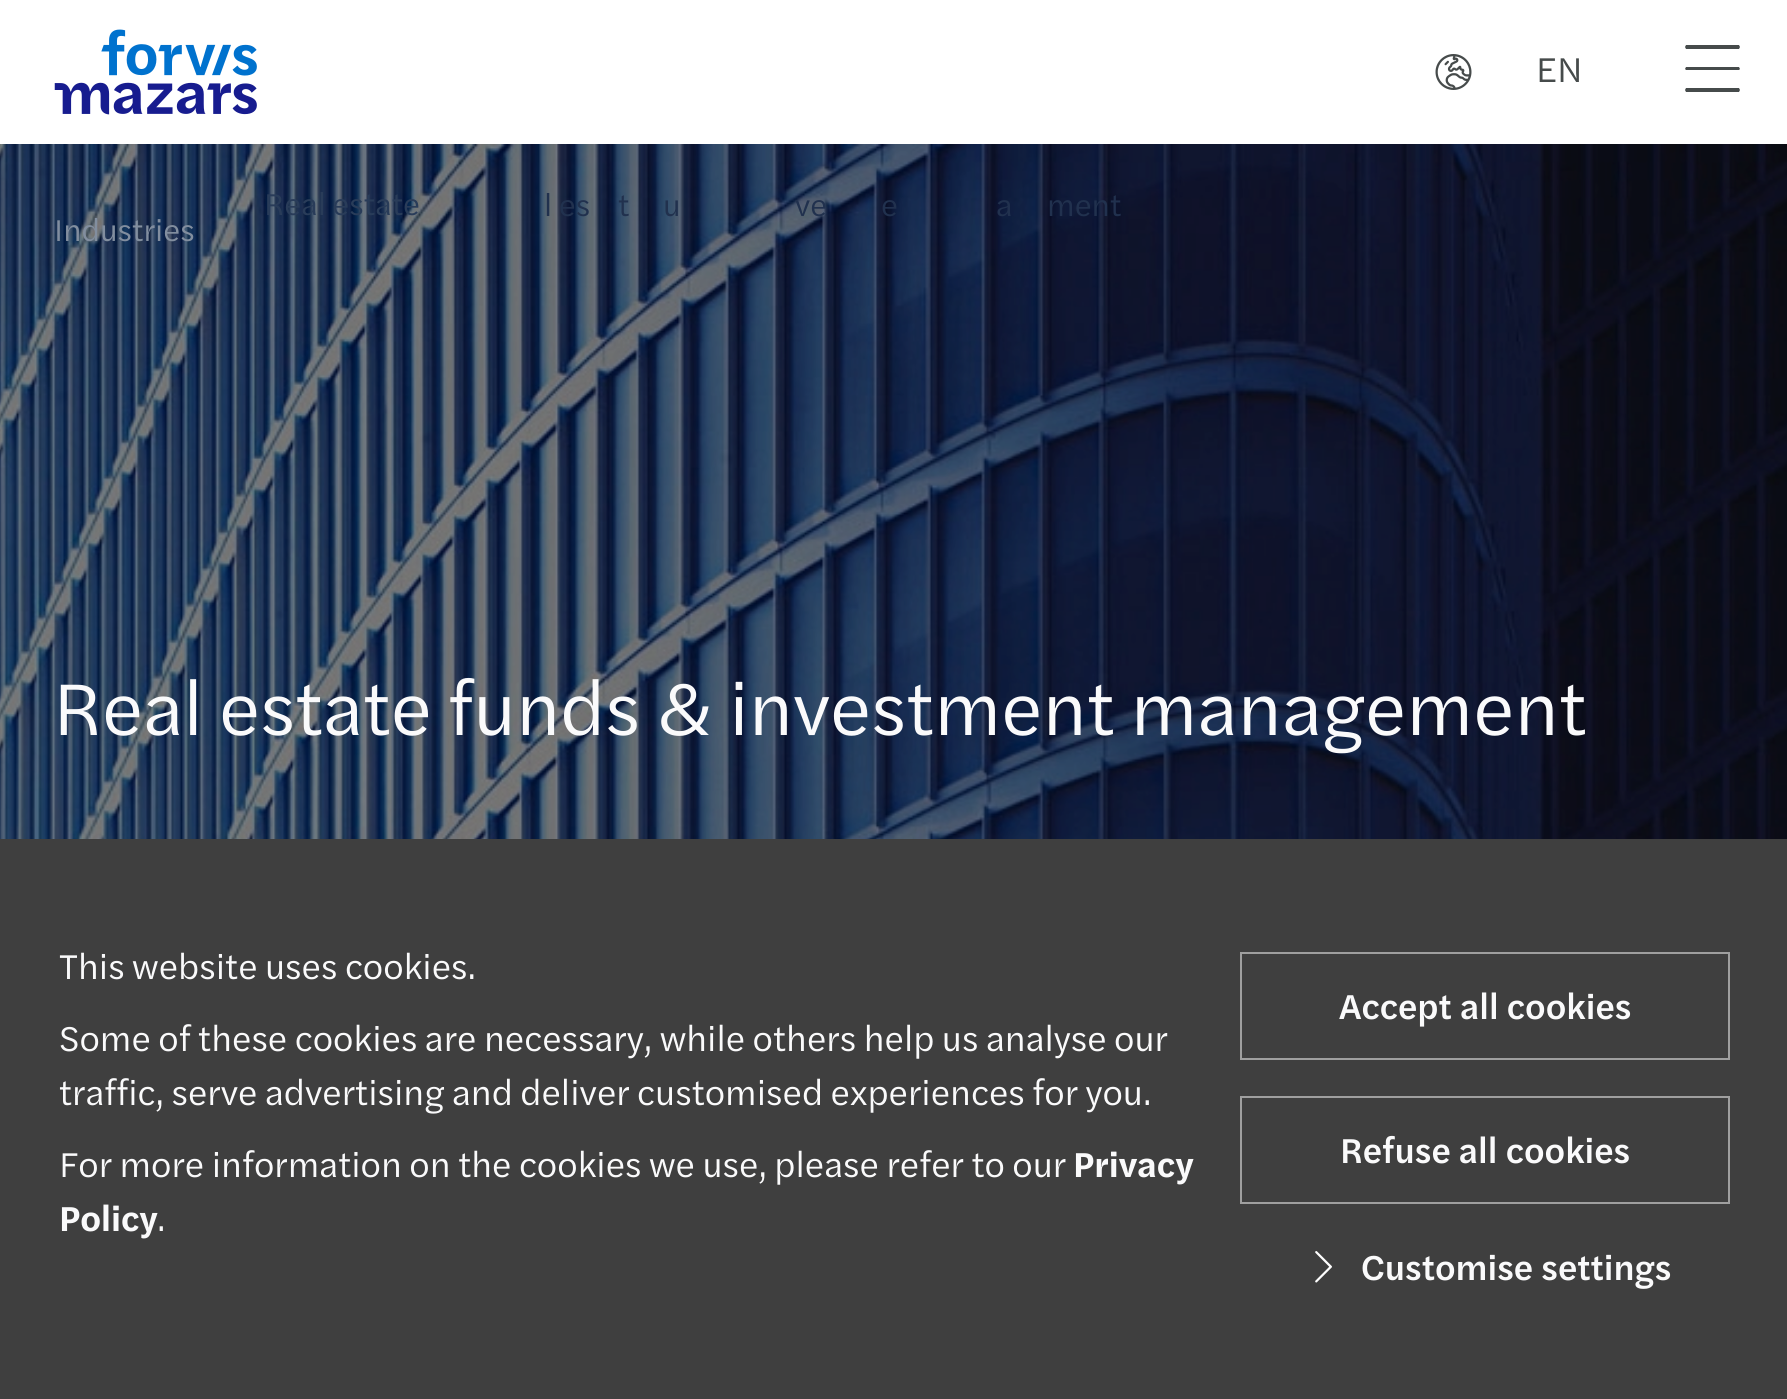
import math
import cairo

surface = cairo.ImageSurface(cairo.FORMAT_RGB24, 1787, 1399)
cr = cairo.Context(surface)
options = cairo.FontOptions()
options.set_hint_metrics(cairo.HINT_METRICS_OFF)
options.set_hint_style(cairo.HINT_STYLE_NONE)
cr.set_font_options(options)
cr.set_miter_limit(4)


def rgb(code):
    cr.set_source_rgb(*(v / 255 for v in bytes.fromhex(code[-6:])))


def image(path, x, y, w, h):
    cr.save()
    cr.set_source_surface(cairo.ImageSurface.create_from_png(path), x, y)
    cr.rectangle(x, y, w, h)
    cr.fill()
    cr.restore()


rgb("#ffffff")
cr.paint()
image("img/1.png", 54, 29, 203, 86)
image("img/2.png", 1435, 54, 37, 36)
rgb("#464b4b")
cr.new_path()
cr.move_to(1685, 47)
cr.line_to(1686, 45)
cr.line_to(1739, 45)
cr.line_to(1740, 47)
cr.line_to(1739, 49)
cr.line_to(1686, 49)
cr.close_path()
cr.move_to(1685, 69)
cr.line_to(1686, 67)
cr.line_to(1739, 67)
cr.line_to(1740, 69)
cr.line_to(1739, 70)
cr.line_to(1686, 70)
cr.close_path()
cr.move_to(1740, 90)
cr.line_to(1739, 92)
cr.line_to(1686, 92)
cr.line_to(1685, 90)
cr.line_to(1686, 88)
cr.line_to(1739, 88)
cr.close_path()
cr.fill()
image("img/3.png", 0, 144, 1787, 695)
rgb("#3f3f3f")
cr.rectangle(0, 839, 1787, 560)
cr.fill()
cr.rectangle(1241, 953, 488, 106)
rgb("#9f9f9f")
cr.stroke()
cr.rectangle(1241, 1097, 488, 106)
cr.stroke()
image("img/4.png", 1315, 1251, 17, 32)
cr.select_font_face("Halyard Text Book")
cr.set_font_size(36)
rgb("#464b4b")
cr.move_to(1536, 82)
cr.show_text("EN")
cr.set_font_size(31.5)
rgb("#293c59")
cr.move_to(264, 215)
cr.show_text("Real estate")
rgb("#21314e")
for x, y, s in [
    (544, 216, "l es"),
    (618, 216, "t"),
    (663, 216, "u"),
    (795, 216, "ve"),
    (881, 216, "e"),
    (996, 216, "a"),
    (1047, 216, "ment"),
]:
    cr.move_to(x, y)
    cr.show_text(s)
rgb("#828e9f")
cr.move_to(54, 241)
cr.show_text("Industries")
cr.set_font_size(76.5)
rgb("#fafafb")
cr.move_to(53, 735)
cr.show_text("Real estate funds & investment management")
cr.set_font_size(36)
for x, y, s in [
    (59, 979, "This website uses cookies."),
    (59, 1051, "Some of these cookies are necessary, while others help us analyse our"),
    (59, 1105, "traffic, serve advertising and deliver customised experiences for you."),
    (59, 1177, "For more information on the cookies we use, please refer to our"),
]:
    cr.move_to(x, y)
    cr.show_text(s)
cr.select_font_face("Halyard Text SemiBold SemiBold")
cr.move_to(1073, 1177)
cr.show_text("Privacy")
cr.move_to(59, 1231)
cr.show_text("Policy")
cr.select_font_face("Halyard Text Book")
cr.move_to(157, 1231)
cr.show_text(".")
cr.select_font_face("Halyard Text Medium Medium")
for x, y, s in [
    (1339, 1019, "Accept all cookies"),
    (1340, 1163, "Refuse all cookies"),
    (1361, 1280, "Customise settings"),
]:
    cr.move_to(x, y)
    cr.show_text(s)
surface.write_to_png("page.png")
